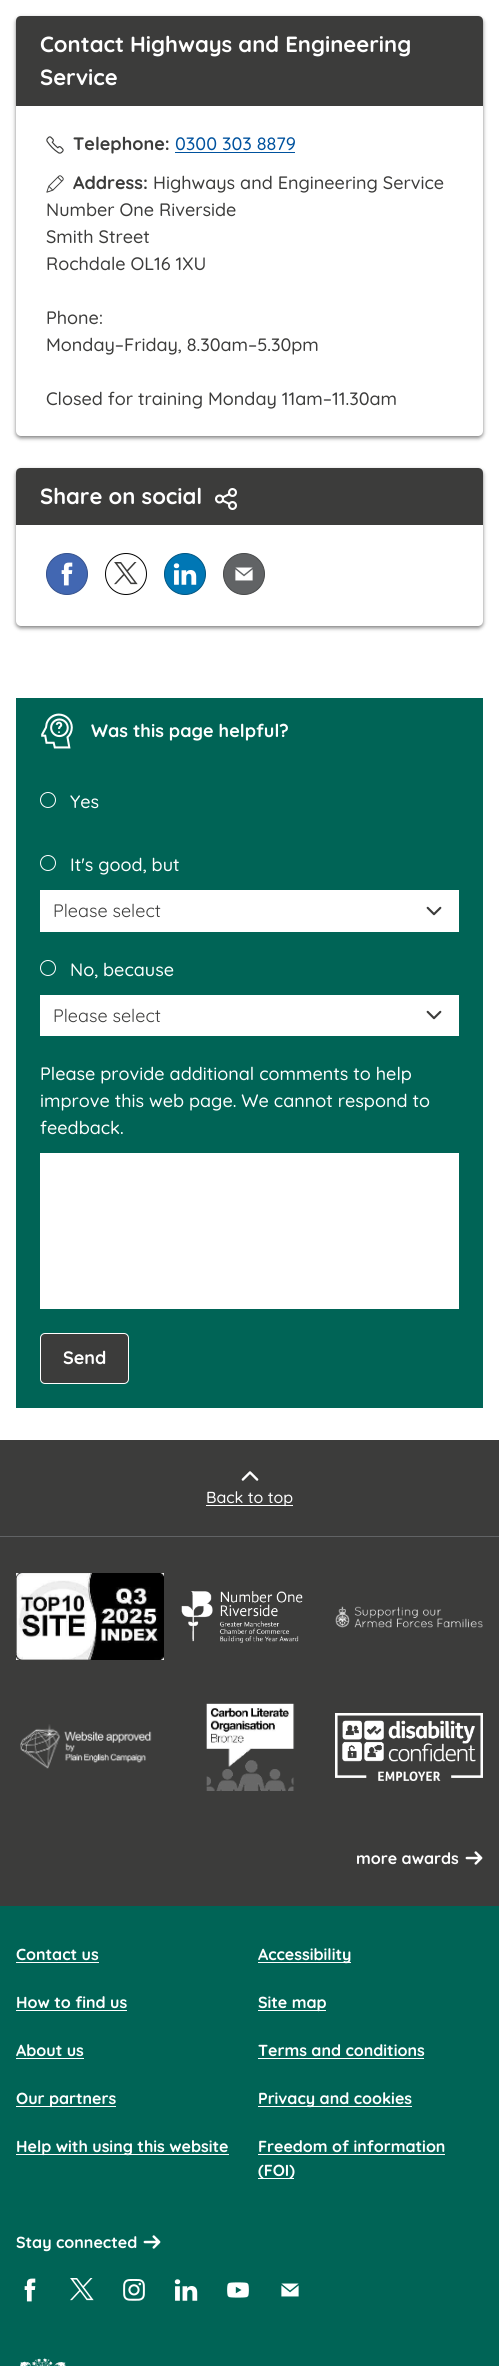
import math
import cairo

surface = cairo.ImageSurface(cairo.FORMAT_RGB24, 499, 2366)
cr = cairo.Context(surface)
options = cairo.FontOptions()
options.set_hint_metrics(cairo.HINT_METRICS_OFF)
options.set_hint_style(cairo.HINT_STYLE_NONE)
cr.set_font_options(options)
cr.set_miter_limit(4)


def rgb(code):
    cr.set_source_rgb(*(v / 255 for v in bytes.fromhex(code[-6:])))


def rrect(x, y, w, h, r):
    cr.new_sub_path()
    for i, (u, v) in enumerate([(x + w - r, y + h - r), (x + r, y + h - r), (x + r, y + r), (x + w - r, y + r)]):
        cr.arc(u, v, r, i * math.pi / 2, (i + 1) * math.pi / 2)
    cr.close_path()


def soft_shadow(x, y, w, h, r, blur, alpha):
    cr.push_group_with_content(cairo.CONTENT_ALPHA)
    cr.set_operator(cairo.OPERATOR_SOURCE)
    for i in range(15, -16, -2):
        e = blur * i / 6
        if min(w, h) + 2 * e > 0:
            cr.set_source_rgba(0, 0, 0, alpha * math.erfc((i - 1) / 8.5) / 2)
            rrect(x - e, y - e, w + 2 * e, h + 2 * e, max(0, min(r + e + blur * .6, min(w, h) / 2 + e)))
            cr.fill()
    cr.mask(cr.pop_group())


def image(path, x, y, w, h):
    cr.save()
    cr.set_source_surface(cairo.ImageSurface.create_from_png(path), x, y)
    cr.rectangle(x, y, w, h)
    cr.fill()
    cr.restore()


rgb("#ffffff")
cr.paint()
rgb("#000000")
soft_shadow(16, 18, 467, 420, 5, 2, 0.5)
rgb("#ffffff")
rrect(16, 16, 467, 420, 5)
cr.fill()
rgb("#3c3c3b")
cr.new_path()
cr.move_to(21, 16)
cr.line_to(478, 16)
cr.curve_to(481, 16, 483, 18, 483, 21)
cr.line_to(483, 106)
cr.line_to(16, 106)
cr.line_to(16, 21)
cr.curve_to(16, 18, 18, 16, 21, 16)
cr.close_path()
cr.fill()
image("img/1.png", 46, 136, 18, 18)
rgb("#00529e")
cr.rectangle(175, 152, 120, 1)
cr.fill()
image("img/2.png", 46, 175, 18, 18)
rgb("#000000")
soft_shadow(16, 470, 467, 158, 5, 2, 0.5)
rgb("#ffffff")
rrect(16, 468, 467, 158, 5)
cr.fill()
rgb("#3c3c3b")
cr.new_path()
cr.move_to(21, 468)
cr.line_to(478, 468)
cr.curve_to(481, 468, 483, 470, 483, 473)
cr.line_to(483, 525)
cr.line_to(16, 525)
cr.line_to(16, 473)
cr.curve_to(16, 470, 18, 468, 21, 468)
cr.close_path()
cr.fill()
image("img/3.png", 215, 488, 22, 22)
rgb("#4267b2")
cr.arc(67, 574, 20.5, 0, 2 * math.pi)
cr.fill_preserve()
rgb("#34518d")
cr.set_line_width(1)
cr.stroke()
image("img/4.png", 61, 562, 12, 24)
cr.arc(126, 574, 20.5, 0, 2 * math.pi)
rgb("#000000")
cr.stroke()
image("img/5.png", 114, 562, 24, 23)
rgb("#0077b5")
cr.arc(185, 574, 20.5, 0, 2 * math.pi)
cr.fill_preserve()
rgb("#005582")
cr.stroke()
image("img/6.png", 173, 563, 24, 22)
rgb("#616365")
cr.arc(244, 574, 20.5, 0, 2 * math.pi)
cr.fill_preserve()
rgb("#484a4b")
cr.stroke()
image("img/7.png", 235, 567, 18, 14)
rgb("#006456")
cr.rectangle(16, 698, 467, 710)
cr.fill()
image("img/8.png", 41, 713, 32, 36)
cr.arc(48, 800, 7.5, 0, 2 * math.pi)
rgb("#ffffff")
cr.stroke()
cr.arc(48, 863, 7.5, 0, 2 * math.pi)
cr.stroke()
cr.rectangle(40, 890, 419, 42)
cr.fill()
image("img/9.png", 426, 906, 16, 10)
cr.arc(48, 968, 7.5, 0, 2 * math.pi)
cr.stroke()
cr.rectangle(40, 995, 419, 41)
cr.fill()
image("img/9.png", 426, 1010, 16, 10)
cr.rectangle(40, 1153, 419, 156)
cr.fill()
rgb("#3c3c3b")
rrect(40.5, 1333.5, 88, 50, 4.5)
cr.fill_preserve()
rgb("#ffffff")
cr.stroke()
rgb("#006456")
cr.rectangle(0, 1906, 499, 460)
cr.fill()
rgb("#3c3c3b")
cr.rectangle(0, 1440, 499, 96)
cr.fill()
image("img/10.png", 241, 1471, 18, 10)
for x, y, w, h, color in [
    (206, 1505, 87, 1, "#ffffff"),
    (0, 1537, 499, 369, "#3c3c3b"),
    (0, 1536, 499, 1, "#616365"),
]:
    rgb(color)
    cr.rectangle(x, y, w, h)
    cr.fill()
image("img/11.png", 16, 1573, 148, 87)
image("img/12.png", 181, 1590, 122, 53)
image("img/13.png", 335, 1606, 148, 22)
image("img/14.png", 20, 1724, 132, 45)
image("img/15.png", 206, 1703, 89, 88)
image("img/16.png", 335, 1713, 148, 68)
image("img/17.png", 465, 1851, 18, 14)
for x, y, w, h, color in [
    (16, 1962, 83, 1, "#ffffff"),
    (258, 1962, 93, 1, "#ffffff"),
    (16, 2010, 111, 1, "#ffffff"),
    (258, 2010, 68, 1, "#ffffff"),
    (16, 2058, 68, 1, "#ffffff"),
    (258, 2058, 166, 1, "#ffffff"),
    (16, 2106, 100, 1, "#ffffff"),
    (258, 2106, 154, 1, "#ffffff"),
    (16, 2154, 213, 1, "#ffffff"),
    (258, 2154, 187, 1, "#ffffff"),
    (258, 2178, 36, 1, "#ffffff"),
]:
    rgb(color)
    cr.rectangle(x, y, w, h)
    cr.fill()
image("img/18.png", 143, 2235, 18, 14)
image("img/19.png", 24, 2278, 12, 24)
image("img/20.png", 70, 2278, 24, 23)
image("img/21.png", 123, 2279, 22, 22)
image("img/22.png", 174, 2279, 24, 22)
image("img/23.png", 227, 2282, 22, 16)
image("img/24.png", 281, 2283, 18, 14)
image("img/25.png", 20, 2358, 46, 8)
cr.select_font_face("Quicksand", cairo.FONT_SLANT_NORMAL, cairo.FONT_WEIGHT_BOLD)
cr.set_font_size(22)
cr.move_to(40, 52)
cr.show_text("Contact Highways and Engineering")
cr.move_to(40, 85)
cr.show_text("Service")
cr.set_font_size(18)
rgb("#3c3c3b")
cr.move_to(73, 150)
cr.show_text("Telephone:")
cr.select_font_face("Quicksand Medium")
rgb("#00529e")
cr.move_to(175, 150)
cr.show_text("0300 303 8879")
cr.select_font_face("Quicksand", cairo.FONT_SLANT_NORMAL, cairo.FONT_WEIGHT_BOLD)
rgb("#3c3c3b")
cr.move_to(73, 189)
cr.show_text("Address:")
cr.select_font_face("Quicksand Medium")
for x, y, s in [
    (153, 189, "Highways and Engineering Service"),
    (46, 216, "Number One Riverside"),
    (46, 243, "Smith Street"),
    (46, 270, "Rochdale OL16 1XU"),
    (46, 324, "Phone:"),
    (46, 351, "Monday–Friday, 8.30am–5.30pm"),
    (46, 405, "Closed for training Monday 11am–11.30am"),
]:
    cr.move_to(x, y)
    cr.show_text(s)
cr.select_font_face("Quicksand", cairo.FONT_SLANT_NORMAL, cairo.FONT_WEIGHT_BOLD)
cr.set_font_size(22)
rgb("#ffffff")
cr.move_to(40, 504)
cr.show_text("Share on social")
cr.set_font_size(18)
cr.move_to(91, 737)
cr.show_text("Was this page helpful?")
cr.select_font_face("Quicksand Medium")
cr.move_to(70, 808)
cr.show_text("Yes")
cr.move_to(70, 871)
cr.show_text("It's good, but")
cr.select_font_face("Quicksand")
rgb("#3c3c3b")
cr.move_to(53, 917)
cr.show_text("Please select")
cr.select_font_face("Quicksand Medium")
rgb("#ffffff")
cr.move_to(70, 976)
cr.show_text("No, because")
cr.select_font_face("Quicksand")
rgb("#3c3c3b")
cr.move_to(53, 1022)
cr.show_text("Please select")
cr.select_font_face("Quicksand Medium")
rgb("#ffffff")
for x, y, s in [
    (40, 1080, "Please provide additional comments to help"),
    (40, 1107, "improve this web page. We cannot respond to"),
    (40, 1134, "feedback."),
]:
    cr.move_to(x, y)
    cr.show_text(s)
cr.select_font_face("Quicksand", cairo.FONT_SLANT_NORMAL, cairo.FONT_WEIGHT_BOLD)
cr.move_to(63, 1364)
cr.show_text("Send")
cr.select_font_face("Quicksand Medium")
cr.set_font_size(16)
cr.move_to(206, 1503)
cr.show_text("Back to top")
cr.select_font_face("Quicksand", cairo.FONT_SLANT_NORMAL, cairo.FONT_WEIGHT_BOLD)
for x, y, s in [
    (356, 1864, "more awards"),
    (16, 1960, "Contact us"),
    (258, 1960, "Accessibility"),
    (16, 2008, "How to find us"),
    (258, 2008, "Site map"),
    (16, 2056, "About us"),
    (258, 2056, "Terms and conditions"),
    (16, 2104, "Our partners"),
    (258, 2104, "Privacy and cookies"),
    (16, 2152, "Help with using this website"),
    (258, 2152, "Freedom of information"),
    (258, 2176, "(FOI)"),
    (16, 2248, "Stay connected"),
]:
    cr.move_to(x, y)
    cr.show_text(s)
surface.write_to_png("page.png")
